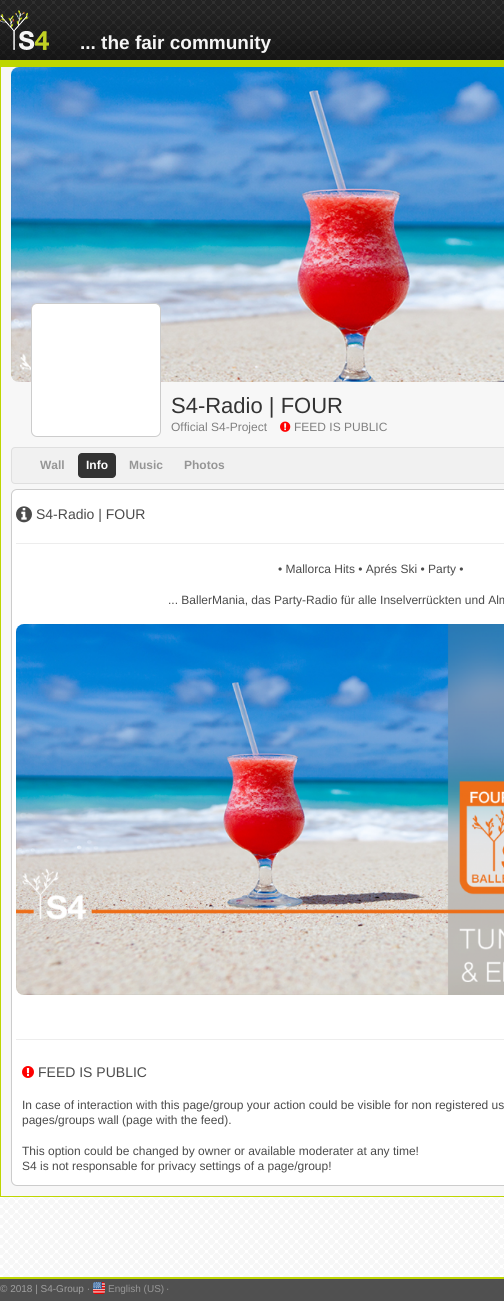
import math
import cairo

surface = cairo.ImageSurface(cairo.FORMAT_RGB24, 504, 1301)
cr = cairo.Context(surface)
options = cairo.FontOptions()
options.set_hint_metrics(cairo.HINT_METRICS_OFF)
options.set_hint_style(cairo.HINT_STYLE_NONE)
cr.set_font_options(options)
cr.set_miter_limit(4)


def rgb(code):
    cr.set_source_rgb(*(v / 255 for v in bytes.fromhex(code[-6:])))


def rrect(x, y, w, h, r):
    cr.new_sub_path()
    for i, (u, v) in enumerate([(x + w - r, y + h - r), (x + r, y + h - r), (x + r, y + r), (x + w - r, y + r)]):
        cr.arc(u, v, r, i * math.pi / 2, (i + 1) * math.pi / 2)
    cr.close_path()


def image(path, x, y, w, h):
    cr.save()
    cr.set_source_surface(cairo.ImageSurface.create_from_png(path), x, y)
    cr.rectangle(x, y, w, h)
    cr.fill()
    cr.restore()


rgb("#ffffff")
cr.paint()
image("img/1.png", 0, 1197, 504, 104)
image("img/2.png", 0, 0, 504, 60)
rgb("#bed600")
cr.rectangle(0, 60, 504, 6)
cr.fill()
image("img/3.png", 0, 10, 49, 40)
rgb("#f7f7f7")
cr.rectangle(0.5, 66.5, 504, 1130)
cr.fill_preserve()
rgb("#bed600")
cr.set_line_width(1)
cr.stroke()
image("img/4.png", 11, 67, 493, 315)
rgb("#ffffff")
rrect(31.5, 303.5, 129, 133, 5.5)
cr.fill_preserve()
rgb("#cccccc")
cr.stroke()
image("img/5.png", 280, 421, 11, 11)
rgb("#f1f1f1")
rrect(11.5, 447.5, 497, 36, 3.5)
cr.fill_preserve()
rgb("#dfdfdf")
cr.stroke()
rgb("#333333")
rrect(78, 453, 38, 25, 4)
cr.fill()
rgb("#ffffff")
rrect(11.5, 489.5, 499, 696, 5.5)
cr.fill_preserve()
rgb("#cccccc")
cr.stroke()
rgb("#ededed")
cr.rectangle(16, 543, 488, 1)
cr.fill()
image("img/6.png", 16, 506, 16, 17)
image("img/7.png", 16, 624, 488, 371)
cr.rectangle(16, 1039, 488, 1)
cr.fill()
image("img/8.png", 22, 1066, 12, 12)
cr.set_source_rgba(0.2, 0.2, 0.2, 0.85)
cr.rectangle(0, 1279, 504, 22)
cr.fill()
rgb("#bed600")
cr.rectangle(0, 1277, 504, 2)
cr.fill()
image("img/9.png", 93, 1282, 12, 12)
cr.select_font_face("Liberation Sans", cairo.FONT_SLANT_NORMAL, cairo.FONT_WEIGHT_BOLD)
cr.set_font_size(19)
rgb("#f5f5f5")
cr.move_to(80, 49)
cr.show_text("... the fair community")
cr.select_font_face("Liberation Sans")
cr.set_font_size(22)
rgb("#333333")
cr.move_to(171, 413)
cr.show_text("S4-Radio | FOUR")
cr.set_font_size(12)
rgb("#808080")
cr.move_to(171, 431)
cr.show_text("Official S4-Project")
cr.move_to(294, 431)
cr.show_text("FEED IS PUBLIC")
cr.select_font_face("Liberation Sans", cairo.FONT_SLANT_NORMAL, cairo.FONT_WEIGHT_BOLD)
rgb("#969696")
cr.move_to(40, 469)
cr.show_text("Wall")
rgb("#ffffff")
cr.move_to(86, 469)
cr.show_text("Info")
rgb("#969696")
cr.move_to(129, 469)
cr.show_text("Music")
cr.move_to(184, 469)
cr.show_text("Photos")
cr.select_font_face("Liberation Sans")
cr.set_font_size(14)
rgb("#4b4b4b")
cr.move_to(36, 519)
cr.show_text("S4-Radio | FOUR")
cr.set_font_size(12)
cr.move_to(278, 573)
cr.show_text("• Mallorca Hits • Aprés Ski • Party •")
cr.move_to(168, 604)
cr.show_text("... BallerMania, das Party-Radio für alle Inselverrückten und Alm")
cr.set_font_size(14)
cr.move_to(38, 1077)
cr.show_text("FEED IS PUBLIC")
cr.set_font_size(12)
for x, y, s in [
    (22, 1109, "In case of interaction with this page/group your action could be visible for non registered us"),
    (22, 1124, "pages/groups wall (page with the feed)."),
    (22, 1155, "This option could be changed by owner or available moderater at any time!"),
    (22, 1170, "S4 is not responsable for privacy settings of a page/group!"),
]:
    cr.move_to(x, y)
    cr.show_text(s)
cr.set_font_size(10)
rgb("#9f9f9f")
cr.move_to(0, 1292)
cr.show_text("© 2018 | S4-Group ·")
rgb("#969696")
cr.move_to(108, 1292)
cr.show_text("English (US)")
rgb("#9f9f9f")
cr.move_to(166, 1292)
cr.show_text("·")
surface.write_to_png("page.png")
